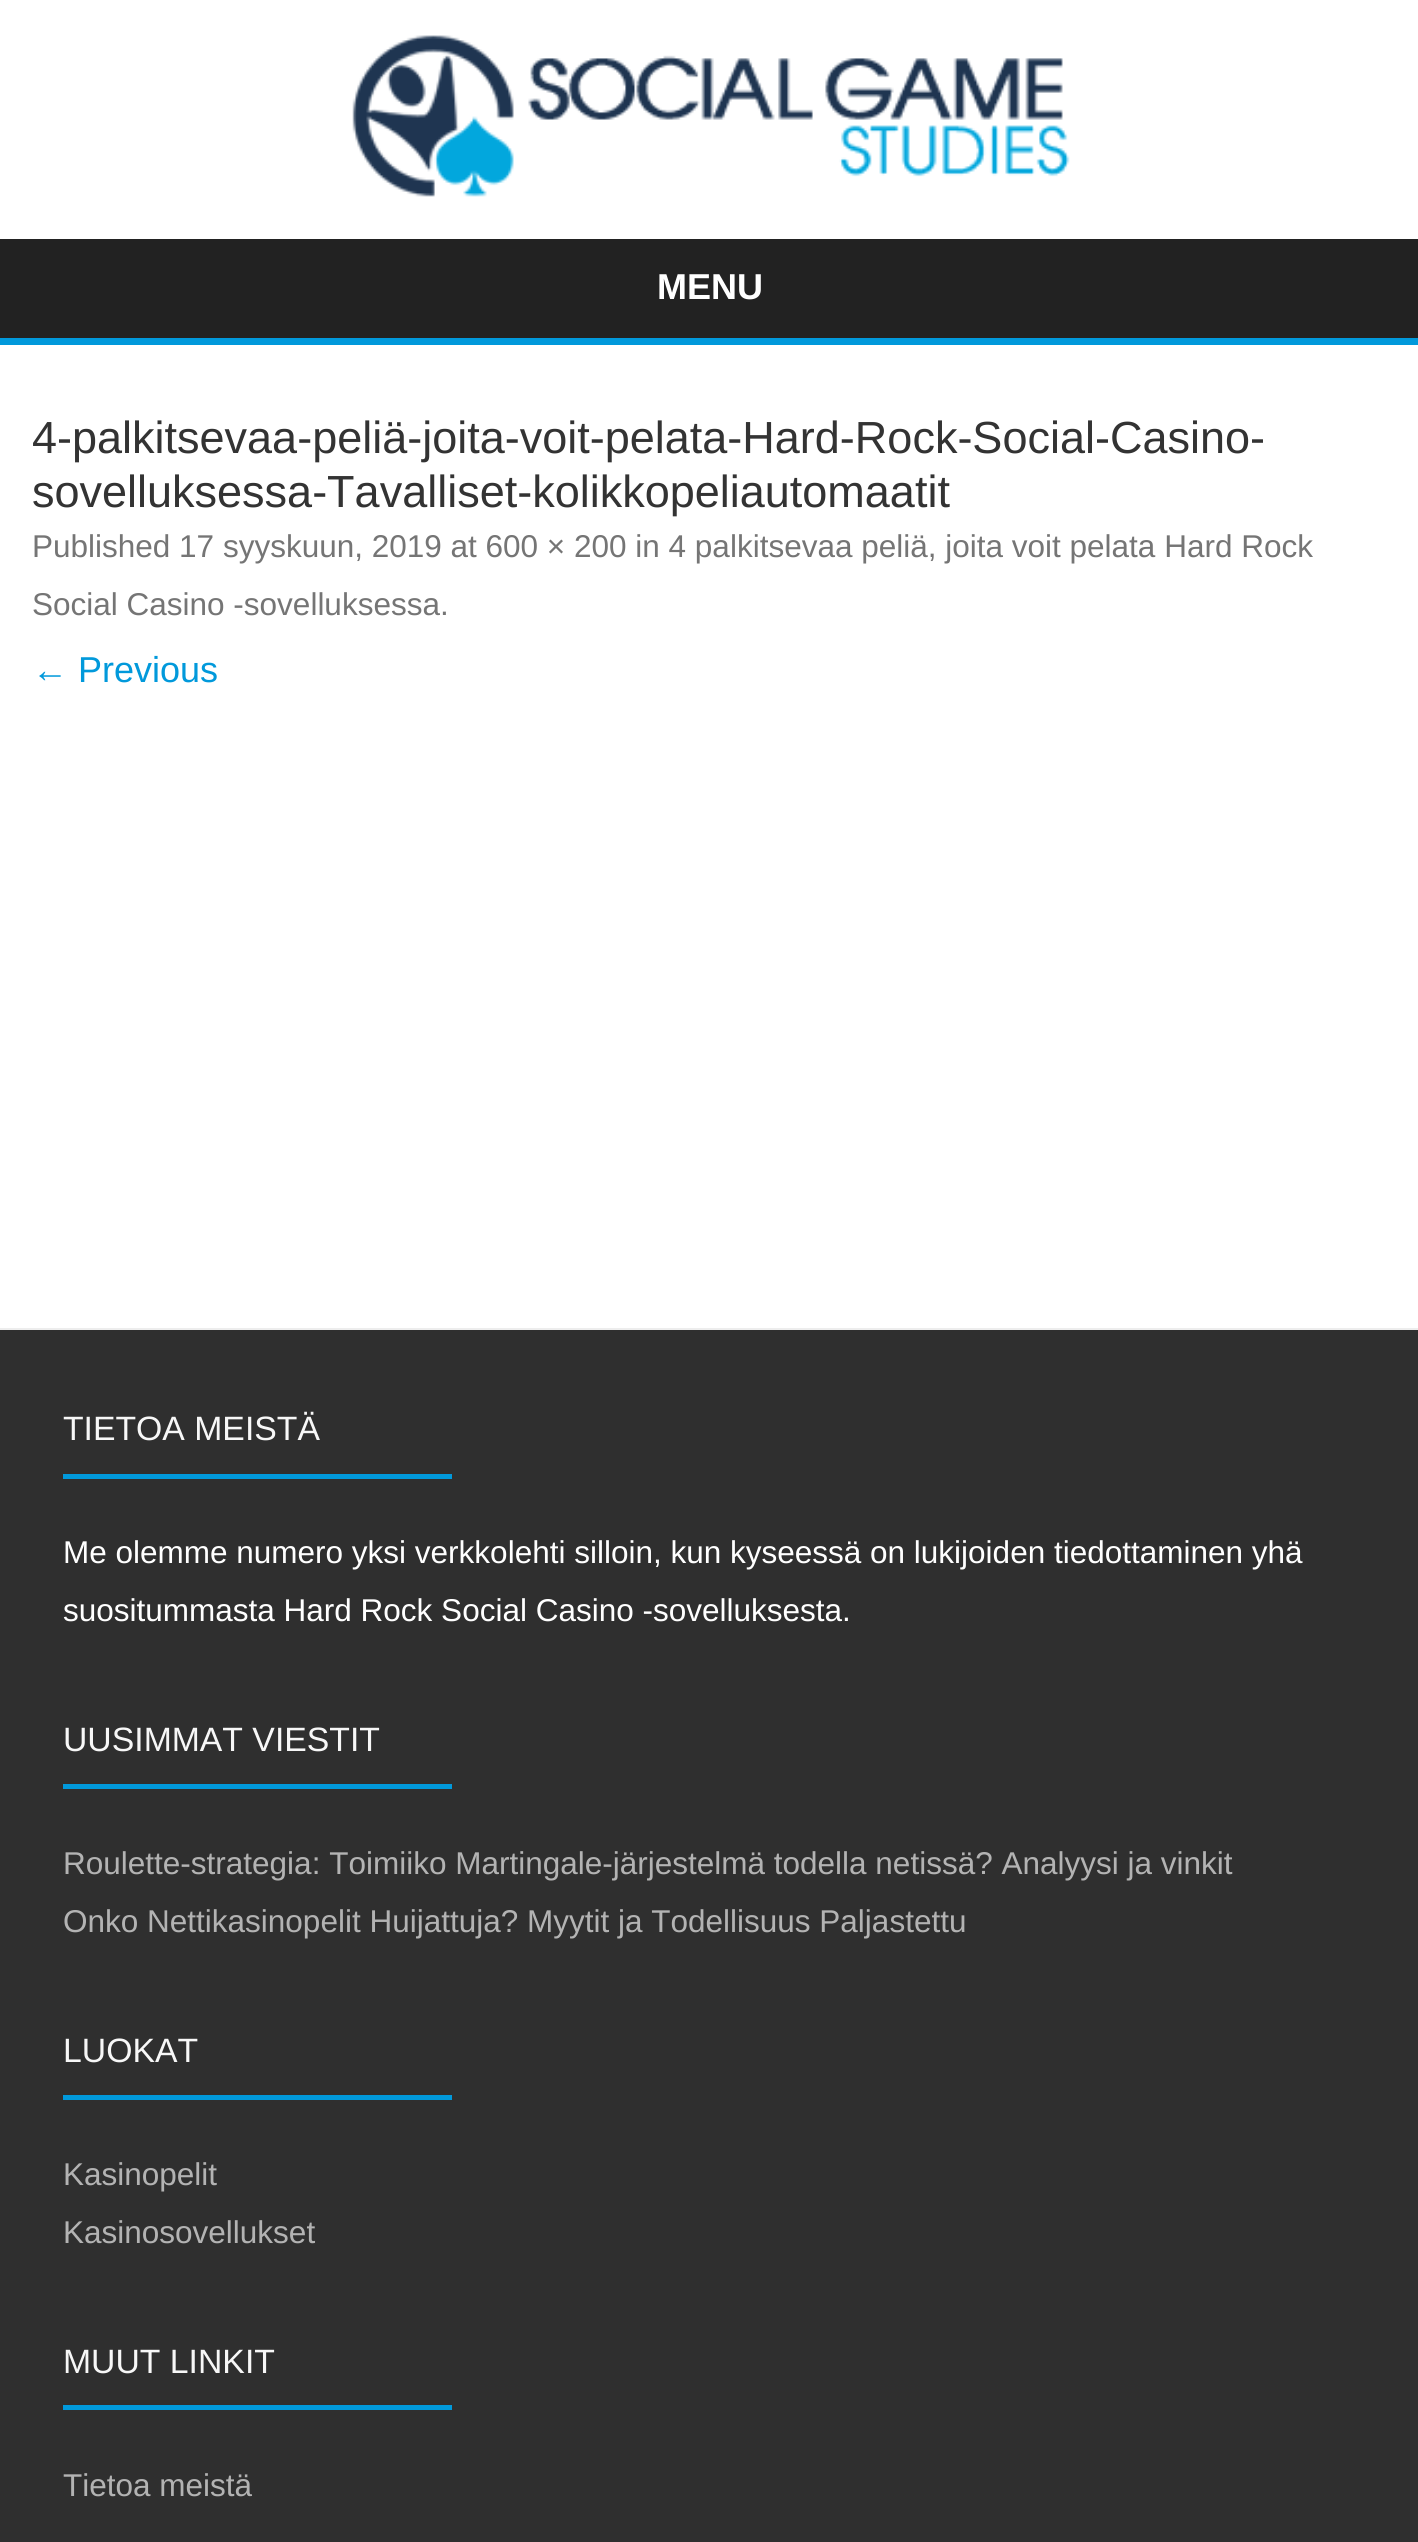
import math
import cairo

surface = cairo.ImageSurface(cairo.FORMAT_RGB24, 1418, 2542)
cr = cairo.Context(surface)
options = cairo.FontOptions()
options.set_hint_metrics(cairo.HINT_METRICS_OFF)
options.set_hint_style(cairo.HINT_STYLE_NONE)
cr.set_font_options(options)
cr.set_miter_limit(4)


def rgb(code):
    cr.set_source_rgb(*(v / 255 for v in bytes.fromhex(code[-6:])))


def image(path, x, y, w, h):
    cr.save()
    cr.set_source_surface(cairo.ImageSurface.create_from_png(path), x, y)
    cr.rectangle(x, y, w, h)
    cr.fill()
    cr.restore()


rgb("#ffffff")
cr.paint()
image("img/1.png", 352, 35, 718, 162)
for x, y, w, h, color in [
    (0, 239, 1418, 99, "#222222"),
    (0, 338, 1418, 7, "#0199db"),
    (0, 1328, 1418, 2, "#ededed"),
    (0, 1330, 1418, 1212, "#2f2f2f"),
    (63, 1474, 389, 5, "#0199db"),
    (63, 1784, 389, 5, "#0199db"),
    (63, 2095, 389, 5, "#0199db"),
    (63, 2405, 389, 5, "#0199db"),
]:
    rgb(color)
    cr.rectangle(x, y, w, h)
    cr.fill()
cr.select_font_face("Arimo", cairo.FONT_SLANT_NORMAL, cairo.FONT_WEIGHT_BOLD)
cr.set_font_size(36)
rgb("#ffffff")
cr.move_to(657, 299)
cr.show_text("MENU")
cr.select_font_face("Arimo")
cr.set_font_size(45)
rgb("#333333")
cr.move_to(32, 453)
cr.show_text("4-palkitsevaa-peliä-joita-voit-pelata-Hard-Rock-Social-Casino-")
cr.move_to(32, 507)
cr.show_text("sovelluksessa-Tavalliset-kolikkopeliautomaatit")
cr.set_font_size(31.5)
rgb("#757575")
cr.move_to(32, 557)
cr.show_text("Published 17 syyskuun, 2019 at 600 × 200 in 4 palkitsevaa peliä, joita voit pelata Hard Rock")
cr.move_to(32, 615)
cr.show_text("Social Casino -sovelluksessa.")
cr.select_font_face("Liberation Sans")
cr.set_font_size(36)
rgb("#0199db")
cr.move_to(32, 682)
cr.show_text("←")
cr.select_font_face("Arimo")
cr.move_to(78, 682)
cr.show_text("Previous")
cr.set_font_size(33.75)
rgb("#f7f7f7")
cr.move_to(63, 1440)
cr.show_text("TIETOA MEISTÄ")
cr.set_font_size(31.5)
rgb("#ffffff")
cr.move_to(63, 1563)
cr.show_text("Me olemme numero yksi verkkolehti silloin, kun kyseessä on lukijoiden tiedottaminen yhä")
cr.move_to(63, 1621)
cr.show_text("suositummasta Hard Rock Social Casino -sovelluksesta.")
cr.set_font_size(33.75)
rgb("#f7f7f7")
cr.move_to(63, 1751)
cr.show_text("UUSIMMAT VIESTIT")
cr.set_font_size(31.5)
rgb("#b3b3b3")
cr.move_to(63, 1874)
cr.show_text("Roulette-strategia: Toimiiko Martingale-järjestelmä todella netissä? Analyysi ja vinkit")
cr.move_to(63, 1932)
cr.show_text("Onko Nettikasinopelit Huijattuja? Myytit ja Todellisuus Paljastettu")
cr.set_font_size(33.75)
rgb("#f7f7f7")
cr.move_to(63, 2062)
cr.show_text("LUOKAT")
cr.set_font_size(31.5)
rgb("#b3b3b3")
cr.move_to(63, 2185)
cr.show_text("Kasinopelit")
cr.move_to(63, 2243)
cr.show_text("Kasinosovellukset")
cr.set_font_size(33.75)
rgb("#f7f7f7")
cr.move_to(63, 2373)
cr.show_text("MUUT LINKIT")
cr.set_font_size(31.5)
rgb("#b3b3b3")
cr.move_to(63, 2496)
cr.show_text("Tietoa meistä")
surface.write_to_png("page.png")
